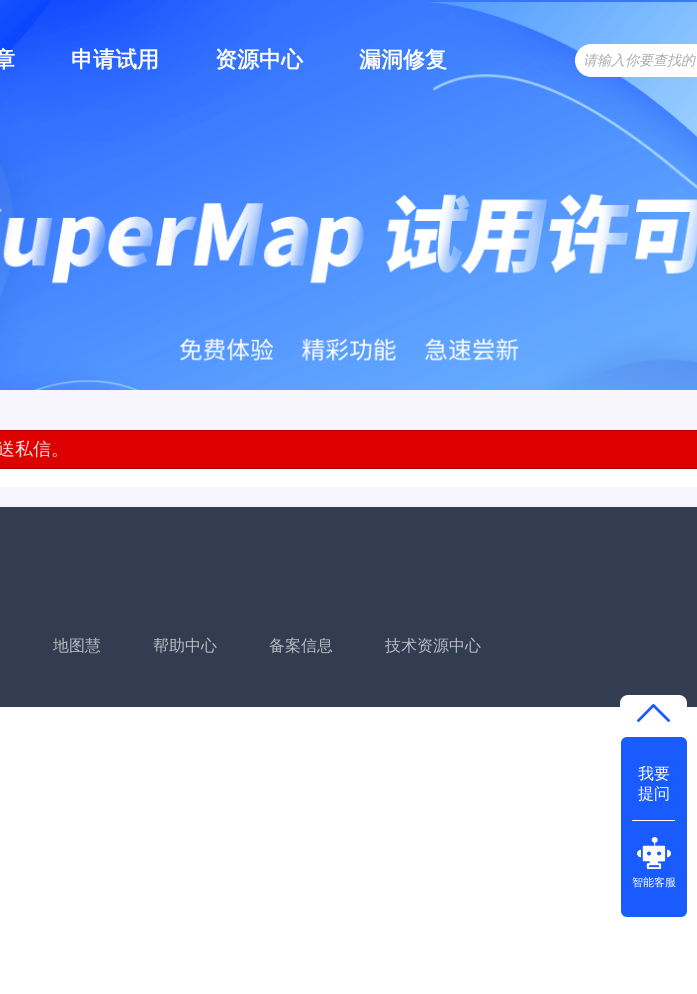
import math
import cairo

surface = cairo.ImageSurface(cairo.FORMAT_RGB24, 697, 994)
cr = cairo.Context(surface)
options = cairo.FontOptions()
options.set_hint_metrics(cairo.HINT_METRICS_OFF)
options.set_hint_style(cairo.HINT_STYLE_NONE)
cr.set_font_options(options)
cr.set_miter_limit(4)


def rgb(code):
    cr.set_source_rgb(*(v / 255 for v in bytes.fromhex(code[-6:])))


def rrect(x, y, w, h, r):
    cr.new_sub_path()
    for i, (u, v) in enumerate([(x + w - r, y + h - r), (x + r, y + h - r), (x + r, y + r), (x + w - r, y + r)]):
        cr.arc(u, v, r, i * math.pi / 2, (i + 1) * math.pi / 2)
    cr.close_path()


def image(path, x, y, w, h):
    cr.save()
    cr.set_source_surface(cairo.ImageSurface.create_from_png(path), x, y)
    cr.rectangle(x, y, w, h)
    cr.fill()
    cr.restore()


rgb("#ffffff")
cr.paint()
image("img/1.png", 0, 0, 697, 390)
rgb("#ffffff")
rrect(575, 44, 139, 33, 16.5)
cr.fill()
rgb("#f7f6fe")
cr.rectangle(0, 390, 697, 117)
cr.fill()
rgb("#ffffff")
cr.rectangle(0, 469, 697, 18)
cr.fill()
rgb("#dd0000")
cr.rectangle(-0.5, 430.5, 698, 38)
cr.fill_preserve()
rgb("#aa0000")
cr.set_line_width(1)
cr.stroke()
rgb("#333d51")
cr.rectangle(0, 507, 697, 200)
cr.fill()
rgb("#ffffff")
rrect(620, 695, 67, 37, 8)
cr.fill()
image("img/2.png", 637, 704, 33, 18)
rgb("#1a5bff")
rrect(621, 737, 66, 180, 6)
cr.fill()
rgb("#ffffff")
rrect(632, 820, 43, 1, 0.5)
cr.fill()
image("img/3.png", 637, 837, 34, 32)
cr.select_font_face("WenQuanYi Zen Hei", cairo.FONT_SLANT_NORMAL, cairo.FONT_WEIGHT_BOLD)
cr.set_font_size(22)
for x, y, s in [
    (-7, 67, "章"),
    (71, 67, "申请试用"),
    (215, 67, "资源中心"),
    (359, 67, "漏洞修复"),
]:
    cr.move_to(x, y)
    cr.show_text(s)
cr.select_font_face("WenQuanYi Zen Hei Medium", cairo.FONT_SLANT_ITALIC)
cr.set_font_size(14)
rgb("#aaaaaa")
cr.move_to(583, 65)
cr.show_text("请输入你要查找的")
cr.select_font_face("WenQuanYi Zen Hei Medium")
cr.set_font_size(18)
rgb("#ffd9d9")
cr.move_to(-3, 455)
cr.show_text("送私信。")
cr.set_font_size(16)
rgb("#b8bbc2")
for x, y, s in [
    (53, 651, "地图慧"),
    (153, 651, "帮助中心"),
    (269, 651, "备案信息"),
    (385, 651, "技术资源中心"),
]:
    cr.move_to(x, y)
    cr.show_text(s)
rgb("#ffffff")
cr.move_to(638, 779)
cr.show_text("我要")
cr.move_to(638, 799)
cr.show_text("提问")
cr.set_font_size(11)
cr.move_to(632, 886)
cr.show_text("智能客服")
surface.write_to_png("page.png")
